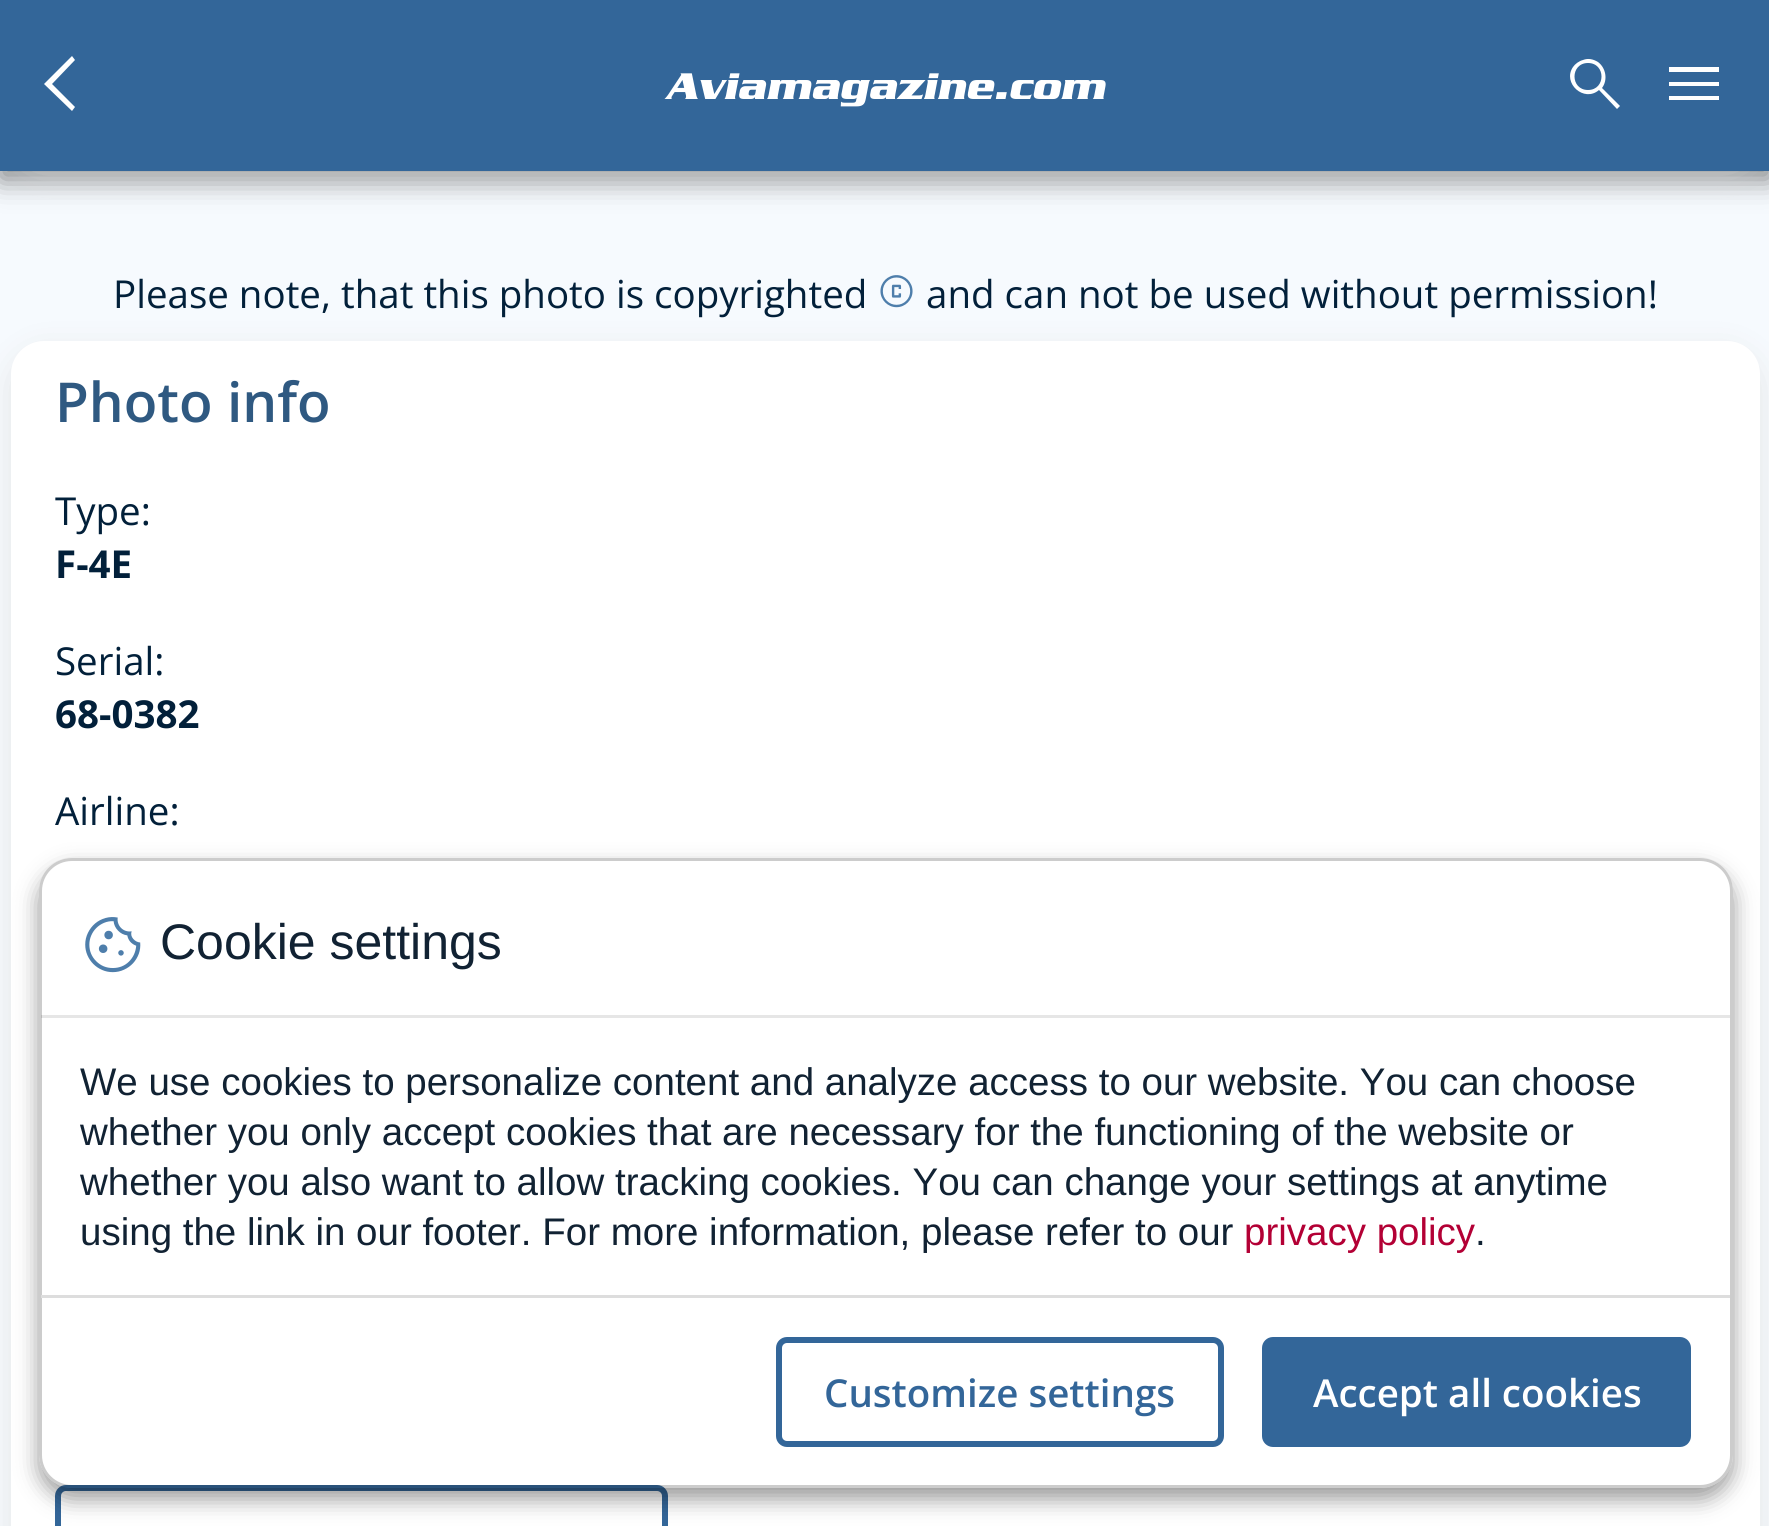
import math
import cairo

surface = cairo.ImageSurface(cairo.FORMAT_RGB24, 1769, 1526)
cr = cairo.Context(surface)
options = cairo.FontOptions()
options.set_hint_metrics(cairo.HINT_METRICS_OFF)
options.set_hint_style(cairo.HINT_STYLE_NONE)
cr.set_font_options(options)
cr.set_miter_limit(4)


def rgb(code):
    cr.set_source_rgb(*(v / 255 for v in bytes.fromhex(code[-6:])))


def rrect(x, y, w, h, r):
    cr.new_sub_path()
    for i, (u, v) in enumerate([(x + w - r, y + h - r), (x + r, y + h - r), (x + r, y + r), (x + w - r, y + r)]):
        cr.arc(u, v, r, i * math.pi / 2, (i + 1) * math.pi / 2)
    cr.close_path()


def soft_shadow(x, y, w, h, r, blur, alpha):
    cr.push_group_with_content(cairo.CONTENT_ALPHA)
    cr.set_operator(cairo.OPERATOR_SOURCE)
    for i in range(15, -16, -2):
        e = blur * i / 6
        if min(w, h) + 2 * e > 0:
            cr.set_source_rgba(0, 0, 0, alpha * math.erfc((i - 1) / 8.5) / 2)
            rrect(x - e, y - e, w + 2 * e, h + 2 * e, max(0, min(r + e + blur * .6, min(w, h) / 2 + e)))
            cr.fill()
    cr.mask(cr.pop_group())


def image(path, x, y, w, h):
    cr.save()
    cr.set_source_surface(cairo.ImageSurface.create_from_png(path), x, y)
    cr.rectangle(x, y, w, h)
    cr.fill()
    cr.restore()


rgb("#f6fafe")
cr.paint()
rgb("#000000")
soft_shadow(0, 8, 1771, 171, 0, 14, 0.5)
rgb("#e0e0e0")
soft_shadow(11, -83, 1749, 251, 33, 16.5, 0.75)
rgb("#336699")
cr.rectangle(0, 0, 1769, 171)
cr.fill()
rgb("#ffffff")
cr.new_path()
cr.move_to(72, 111)
cr.line_to(44, 84)
cr.line_to(72, 56)
cr.line_to(75, 60)
cr.line_to(52, 84)
cr.line_to(75, 107)
cr.close_path()
cr.fill()
cr.new_path()
cr.move_to(1617, 109)
cr.line_to(1599, 90)
cr.curve_to(1584, 103, 1562, 83, 1573, 67)
cr.curve_to(1575, 64, 1579, 61, 1583, 60)
cr.curve_to(1588, 58, 1593, 59, 1598, 62)
cr.curve_to(1606, 68, 1608, 80, 1602, 88)
cr.line_to(1620, 106)
cr.close_path()
cr.move_to(1588, 90)
cr.curve_to(1606, 90, 1606, 63, 1588, 63)
cr.curve_to(1570, 63, 1570, 90, 1588, 90)
cr.close_path()
cr.fill()
cr.new_path()
cr.move_to(1669, 100)
cr.line_to(1669, 96)
cr.line_to(1719, 96)
cr.line_to(1719, 100)
cr.close_path()
cr.move_to(1669, 86)
cr.line_to(1669, 82)
cr.line_to(1719, 82)
cr.line_to(1719, 86)
cr.close_path()
cr.move_to(1669, 72)
cr.line_to(1669, 67)
cr.line_to(1719, 67)
cr.line_to(1719, 72)
cr.close_path()
cr.fill()
image("img/1.png", 880, 275, 33, 33)
rgb("#e0e0e0")
soft_shadow(11, 352, 1749, 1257, 33, 16.5, 0.75)
rgb("#ffffff")
rrect(11, 341, 1749, 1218, 33)
cr.fill()
rrect(58, 1488, 607, 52, 8)
rgb("#336699")
cr.set_line_width(6)
cr.stroke()
cr.save()
cr.set_fill_rule(cairo.FILL_RULE_EVEN_ODD)
cr.new_path()
cr.move_to(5, 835)
cr.line_to(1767, 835)
cr.line_to(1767, 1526)
cr.line_to(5, 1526)
cr.close_path()
cr.move_to(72, 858)
cr.line_to(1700, 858)
cr.curve_to(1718, 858, 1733, 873, 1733, 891)
cr.line_to(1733, 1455)
cr.curve_to(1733, 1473, 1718, 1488, 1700, 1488)
cr.line_to(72, 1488)
cr.curve_to(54, 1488, 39, 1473, 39, 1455)
cr.line_to(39, 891)
cr.curve_to(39, 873, 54, 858, 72, 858)
cr.close_path()
cr.clip()
rgb("#000000")
soft_shadow(39, 869, 1694, 630, 33, 11, 0.4)
cr.restore()
rrect(40.5, 859.5, 1691, 627, 31.5)
cr.set_source_rgba(0, 0, 0, 0.2)
cr.set_line_width(3)
cr.stroke()
cr.set_source_rgba(0, 0, 0, 0.1)
cr.rectangle(41, 1015, 1689, 3)
cr.fill()
image("img/2.png", 85, 917, 56, 56)
rgb("#dddddd")
cr.rectangle(41, 1295, 1689, 3)
cr.fill()
rrect(779, 1340, 442, 104, 8)
rgb("#336699")
cr.set_line_width(6)
cr.stroke()
rrect(1265, 1340, 423, 104, 8)
cr.fill_preserve()
cr.stroke()
cr.select_font_face("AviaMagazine", cairo.FONT_SLANT_ITALIC, cairo.FONT_WEIGHT_BOLD)
cr.set_font_size(38.5)
rgb("#ffffff")
cr.move_to(665, 99)
cr.show_text("Aviamagazine.com")
cr.select_font_face("Open Sans")
rgb("#02203a")
cr.move_to(113, 308)
cr.show_text("Please note, that this photo is copyrighted")
cr.move_to(926, 308)
cr.show_text("and can not be used without permission!")
cr.select_font_face("Open Sans SemiBold")
cr.set_font_size(55)
rgb("#2f5981")
cr.move_to(55, 422)
cr.show_text("Photo info")
cr.select_font_face("Open Sans")
cr.set_font_size(38.5)
rgb("#02203a")
cr.move_to(55, 525)
cr.show_text("Type:")
cr.select_font_face("Open Sans", cairo.FONT_SLANT_NORMAL, cairo.FONT_WEIGHT_BOLD)
cr.move_to(55, 578)
cr.show_text("F-4E")
cr.select_font_face("Open Sans")
cr.move_to(55, 675)
cr.show_text("Serial:")
cr.select_font_face("Open Sans", cairo.FONT_SLANT_NORMAL, cairo.FONT_WEIGHT_BOLD)
cr.move_to(55, 728)
cr.show_text("68-0382")
cr.select_font_face("Open Sans")
cr.move_to(55, 825)
cr.show_text("Airline:")
cr.select_font_face("Liberation Sans")
cr.set_font_size(50)
rgb("#112233")
cr.move_to(160, 959)
cr.show_text("Cookie settings")
cr.set_font_size(38.5)
for x, y, s in [
    (80, 1095, "We use cookies to personalize content and analyze access to our website. You can choose"),
    (80, 1145, "whether you only accept cookies that are necessary for the functioning of the website or"),
    (80, 1195, "whether you also want to allow tracking cookies. You can change your settings at anytime"),
    (80, 1245, "using the link in our footer. For more information, please refer to our"),
]:
    cr.move_to(x, y)
    cr.show_text(s)
rgb("#b30035")
cr.move_to(1244, 1245)
cr.show_text("privacy policy")
rgb("#112233")
cr.move_to(1475, 1245)
cr.show_text(".")
cr.select_font_face("Open Sans SemiBold")
rgb("#336699")
cr.move_to(824, 1407)
cr.show_text("Customize settings")
rgb("#ffffff")
cr.move_to(1313, 1407)
cr.show_text("Accept all cookies")
surface.write_to_png("page.png")
